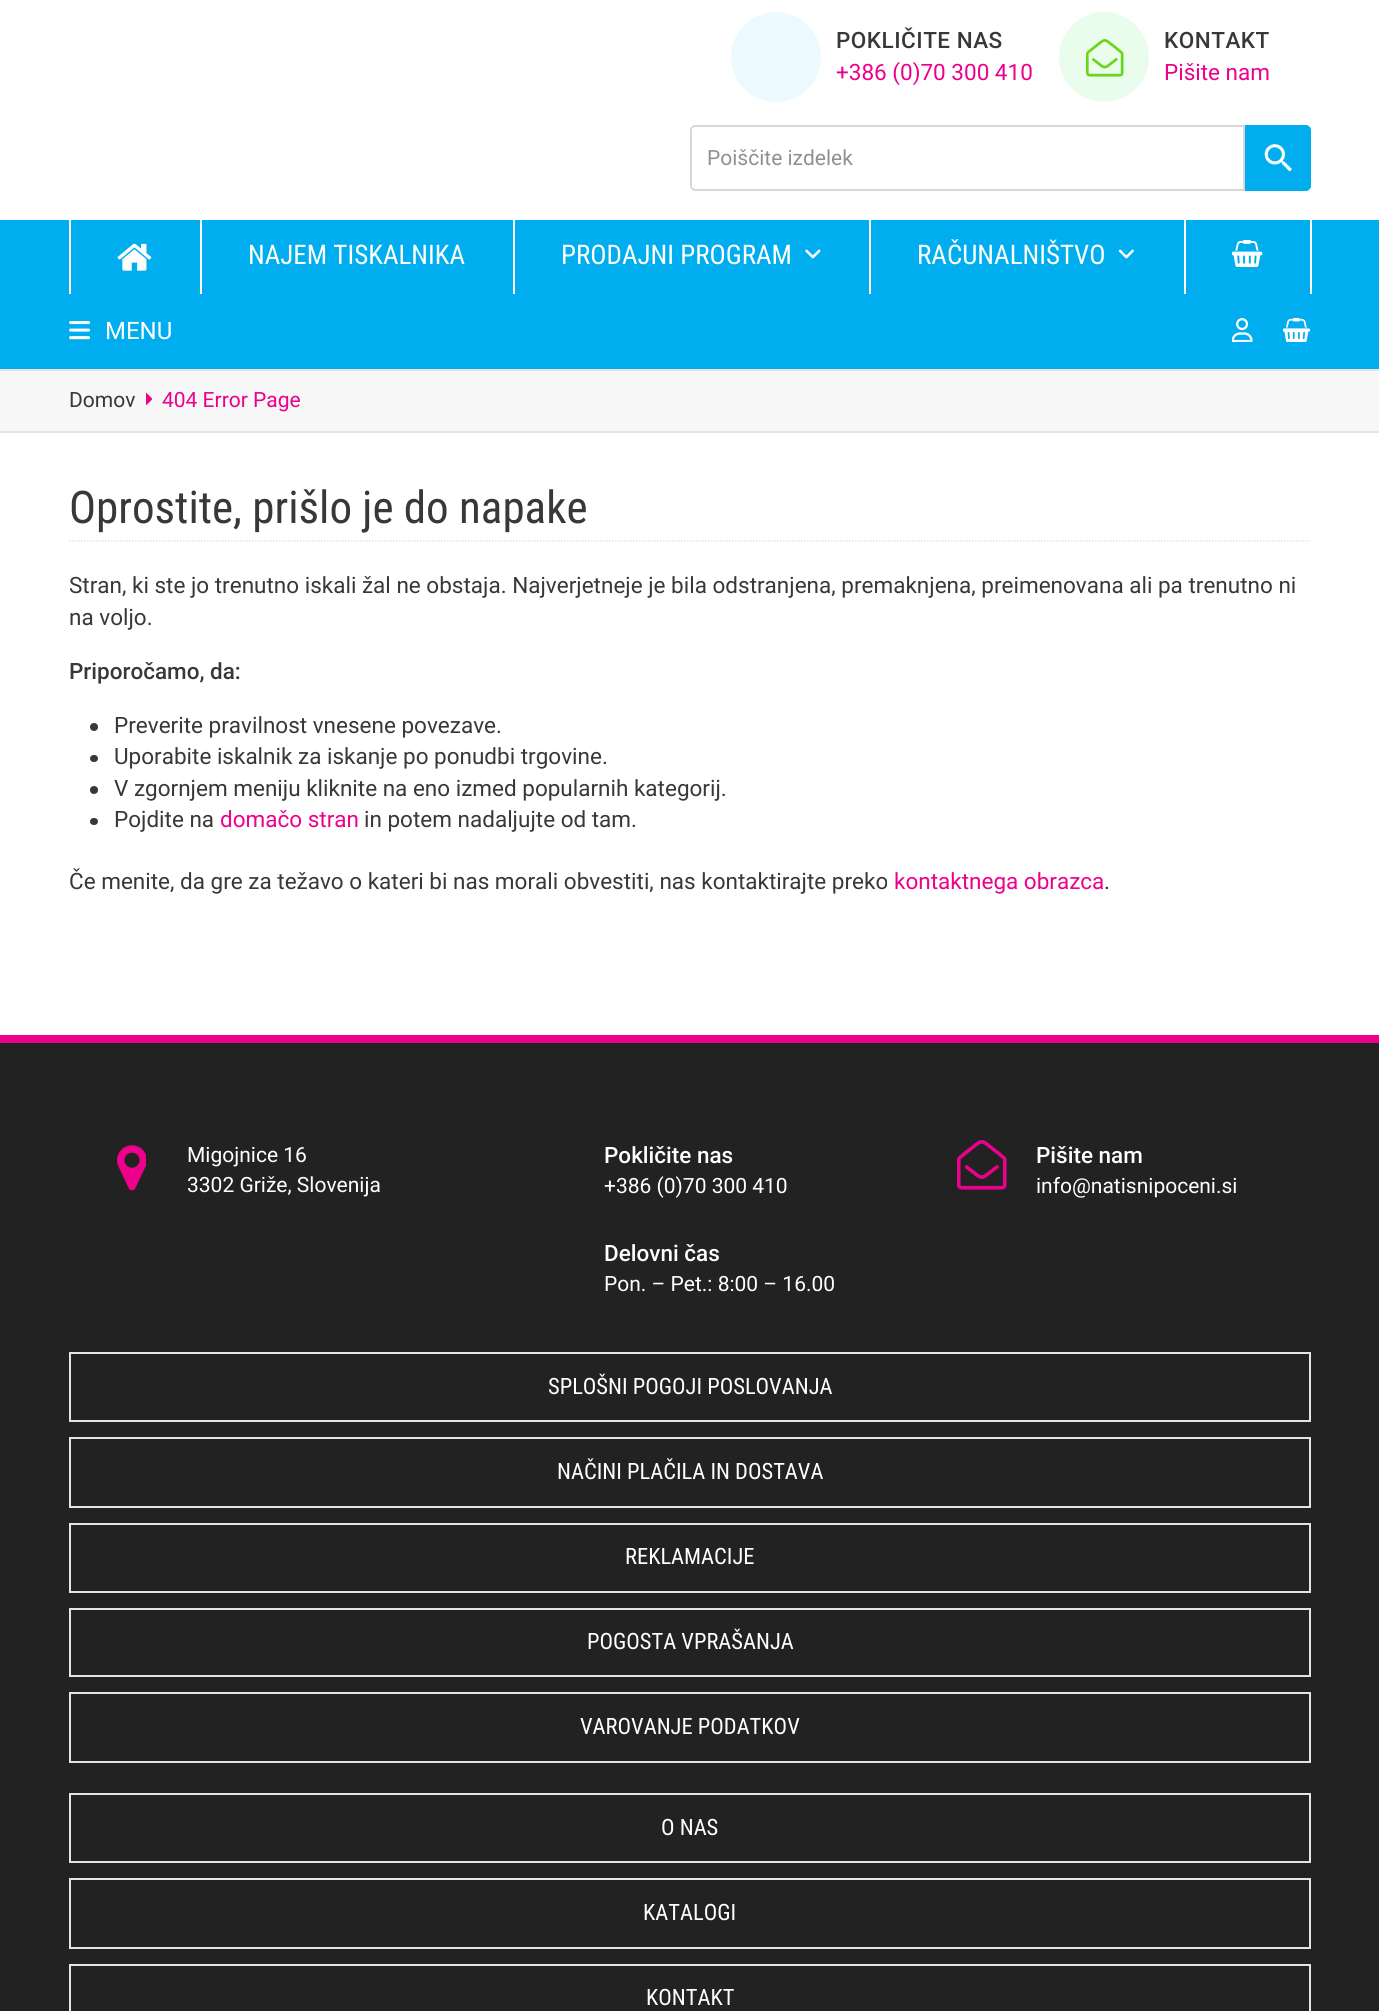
import math
import cairo

surface = cairo.ImageSurface(cairo.FORMAT_RGB24, 1379, 2011)
cr = cairo.Context(surface)
options = cairo.FontOptions()
options.set_hint_metrics(cairo.HINT_METRICS_OFF)
options.set_hint_style(cairo.HINT_STYLE_NONE)
cr.set_font_options(options)
cr.set_miter_limit(4)


def rgb(code):
    cr.set_source_rgb(*(v / 255 for v in bytes.fromhex(code[-6:])))


def tracked(x, y, s, letter, word):
    cr.move_to(x, y)
    for ch in s:
        cr.show_text(ch)
        cr.rel_move_to(letter + word * (ch == ' '), 0)


def rrect(x, y, w, h, r):
    cr.new_sub_path()
    for i, (u, v) in enumerate([(x + w - r, y + h - r), (x + r, y + h - r), (x + r, y + r), (x + w - r, y + r)]):
        cr.arc(u, v, r, i * math.pi / 2, (i + 1) * math.pi / 2)
    cr.close_path()


def image(path, x, y, w, h):
    cr.save()
    cr.set_source_surface(cairo.ImageSurface.create_from_png(path), x, y)
    cr.rectangle(x, y, w, h)
    cr.fill()
    cr.restore()


rgb("#ffffff")
cr.paint()
rgb("#ecf9fe")
cr.arc(776, 57, 45, 0, 2 * math.pi)
cr.fill()
rgb("#eafdec")
cr.arc(1104, 57, 45, 0, 2 * math.pi)
cr.fill()
image("img/1.png", 1086, 39, 38, 38)
rgb("#00aeef")
cr.new_path()
cr.move_to(1245, 126)
cr.line_to(1306, 126)
cr.curve_to(1308, 126, 1310, 128, 1310, 130)
cr.line_to(1310, 186)
cr.curve_to(1310, 188, 1308, 190, 1306, 190)
cr.line_to(1245, 190)
cr.close_path()
cr.fill_preserve()
cr.stroke()
rgb("#ffffff")
cr.new_path()
cr.move_to(695, 126)
cr.line_to(1244, 126)
cr.line_to(1244, 190)
cr.line_to(695, 190)
cr.curve_to(693, 190, 691, 188, 691, 186)
cr.line_to(691, 130)
cr.curve_to(691, 128, 693, 126, 695, 126)
cr.close_path()
cr.fill_preserve()
rgb("#d8d8d8")
cr.stroke()
image("img/2.png", 1264, 144, 28, 28)
for x, y, w, h, color in [
    (0, 220, 1379, 149, "#00aeef"),
    (69, 219, 2, 75, "#ffffff"),
    (200, 219, 2, 75, "#ffffff"),
]:
    rgb(color)
    cr.rectangle(x, y, w, h)
    cr.fill()
image("img/3.png", 117, 243, 35, 28)
cr.rectangle(513, 219, 2, 75)
cr.fill()
cr.rectangle(869, 219, 2, 75)
cr.fill()
image("img/4.png", 805, 249, 16, 10)
cr.rectangle(1184, 219, 2, 75)
cr.fill()
image("img/5.png", 1118, 249, 16, 10)
cr.rectangle(1310, 219, 2, 75)
cr.fill()
image("img/6.png", 1232, 240, 31, 27)
image("img/7.png", 69, 321, 21, 19)
image("img/8.png", 1232, 318, 21, 24)
image("img/9.png", 1283, 318, 28, 24)
for x, y, w, h, color in [
    (0, 371, 1379, 60, "#f7f7f7"),
    (0, 369, 1379, 2, "#e4e4e4"),
    (0, 431, 1379, 2, "#e4e4e4"),
]:
    rgb(color)
    cr.rectangle(x, y, w, h)
    cr.fill()
image("img/10.png", 146, 393, 7, 12)
cr.new_path()
cr.move_to(69, 541)
cr.line_to(1311, 541)
cr.set_line_width(1.5)
cr.set_dash([1.5, 1.5])
cr.stroke()
rgb("#383838")
cr.arc(94, 727, 4, 0, 2 * math.pi)
cr.fill()
rrect(90, 755, 8, 7, 3.5)
cr.fill()
cr.arc(94, 790, 4, 0, 2 * math.pi)
cr.fill()
rrect(90, 818, 8, 7, 3.5)
cr.fill()
rgb("#222222")
cr.rectangle(0, 1043, 1379, 968)
cr.fill()
rgb("#ec008c")
cr.rectangle(0, 1035, 1379, 8)
cr.fill()
image("img/11.png", 117, 1145, 29, 46)
image("img/12.png", 957, 1140, 50, 50)
cr.rectangle(70, 1353, 1240, 68)
rgb("#e4e4e4")
cr.set_line_width(2)
cr.set_dash([])
cr.stroke()
cr.rectangle(70, 1438, 1240, 69)
cr.stroke()
cr.rectangle(70, 1524, 1240, 68)
cr.stroke()
cr.rectangle(70, 1609, 1240, 67)
cr.stroke()
cr.rectangle(70, 1693, 1240, 69)
cr.stroke()
cr.rectangle(70, 1794, 1240, 68)
cr.stroke()
cr.rectangle(70, 1879, 1240, 69)
cr.stroke()
cr.rectangle(70, 1965, 1240, 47)
cr.stroke()
cr.select_font_face("Roboto Medium")
cr.set_font_size(22.5)
rgb("#383838")
tracked(836, 48, "POKLIČITE NAS", 0.5, 0)
cr.select_font_face("Roboto")
rgb("#ec008c")
cr.move_to(836, 80)
cr.show_text("+386 (0)70 300 410")
cr.select_font_face("Roboto Medium")
rgb("#383838")
tracked(1164, 48, "KONTAKT", 0.5, 0)
cr.select_font_face("Roboto")
rgb("#ec008c")
cr.move_to(1164, 80)
cr.show_text("Pišite nam")
cr.set_font_size(21)
rgb("#909090")
cr.move_to(707, 165)
cr.show_text("Poiščite izdelek")
cr.select_font_face("Roboto Condensed")
cr.set_font_size(27)
rgb("#ffffff")
for x, y, s in [
    (248, 264, "NAJEM TISKALNIKA"),
    (561, 264, "PRODAJNI PROGRAM"),
    (917, 264, "RAČUNALNIŠTVO"),
]:
    cr.move_to(x, y)
    cr.show_text(s)
cr.select_font_face("Roboto")
cr.set_font_size(24)
cr.move_to(105, 339)
cr.show_text("MENU")
cr.set_font_size(21)
rgb("#383838")
cr.move_to(69, 407)
cr.show_text("Domov")
rgb("#ec008c")
cr.move_to(162, 407)
cr.show_text("404 Error Page")
cr.select_font_face("Roboto Condensed")
cr.set_font_size(45)
rgb("#383838")
cr.move_to(69, 523)
cr.show_text("Oprostite, prišlo je do napake")
cr.select_font_face("Roboto")
cr.set_font_size(22.5)
cr.move_to(69, 593)
cr.show_text("Stran, ki ste jo trenutno iskali žal ne obstaja. Najverjetneje je bila odstranjena, premaknjena, preimenovana ali pa trenutno ni")
cr.move_to(69, 625)
cr.show_text("na voljo.")
cr.select_font_face("Roboto Medium")
cr.move_to(69, 679)
cr.show_text("Priporočamo, da:")
cr.select_font_face("Roboto")
for x, y, s in [
    (114, 733, "Preverite pravilnost vnesene povezave."),
    (114, 764, "Uporabite iskalnik za iskanje po ponudbi trgovine."),
    (114, 796, "V zgornjem meniju kliknite na eno izmed popularnih kategorij."),
    (114, 827, "Pojdite na"),
]:
    cr.move_to(x, y)
    cr.show_text(s)
rgb("#ec008c")
cr.move_to(220, 827)
cr.show_text("domačo stran")
rgb("#383838")
cr.move_to(364, 827)
cr.show_text("in potem nadaljujte od tam.")
cr.move_to(69, 889)
cr.show_text("Če menite, da gre za težavo o kateri bi nas morali obvestiti, nas kontaktirajte preko")
rgb("#ec008c")
cr.move_to(894, 889)
cr.show_text("kontaktnega obrazca")
rgb("#383838")
cr.move_to(1104, 889)
cr.show_text(".")
cr.set_font_size(21)
rgb("#ffffff")
cr.move_to(187, 1162)
cr.show_text("Migojnice 16")
cr.move_to(187, 1192)
cr.show_text("3302 Griže, Slovenija")
cr.select_font_face("Roboto Medium")
cr.set_font_size(22.5)
cr.move_to(604, 1163)
cr.show_text("Pokličite nas")
cr.select_font_face("Roboto")
cr.set_font_size(21)
cr.move_to(604, 1193)
cr.show_text("+386 (0)70 300 410")
cr.select_font_face("Roboto Medium")
cr.set_font_size(22.5)
cr.move_to(1036, 1163)
cr.show_text("Pišite nam")
cr.select_font_face("Roboto")
cr.set_font_size(21)
cr.move_to(1036, 1193)
cr.show_text("info@natisnipoceni.si")
cr.select_font_face("Roboto Medium")
cr.set_font_size(22.5)
cr.move_to(604, 1261)
cr.show_text("Delovni čas")
cr.select_font_face("Roboto")
cr.set_font_size(21)
cr.move_to(604, 1291)
cr.show_text("Pon. – Pet.: 8:00 – 16.00")
cr.select_font_face("Roboto Condensed")
cr.set_font_size(22.5)
for x, y, s in [
    (548, 1394, "SPLOŠNI POGOJI POSLOVANJA"),
    (557, 1479, "NAČINI PLAČILA IN DOSTAVA"),
    (625, 1564, "REKLAMACIJE"),
    (587, 1649, "POGOSTA VPRAŠANJA"),
    (580, 1734, "VAROVANJE PODATKOV"),
    (661, 1835, "O NAS"),
    (643, 1920, "KATALOGI"),
    (646, 2005, "KONTAKT"),
]:
    cr.move_to(x, y)
    cr.show_text(s)
surface.write_to_png("page.png")
